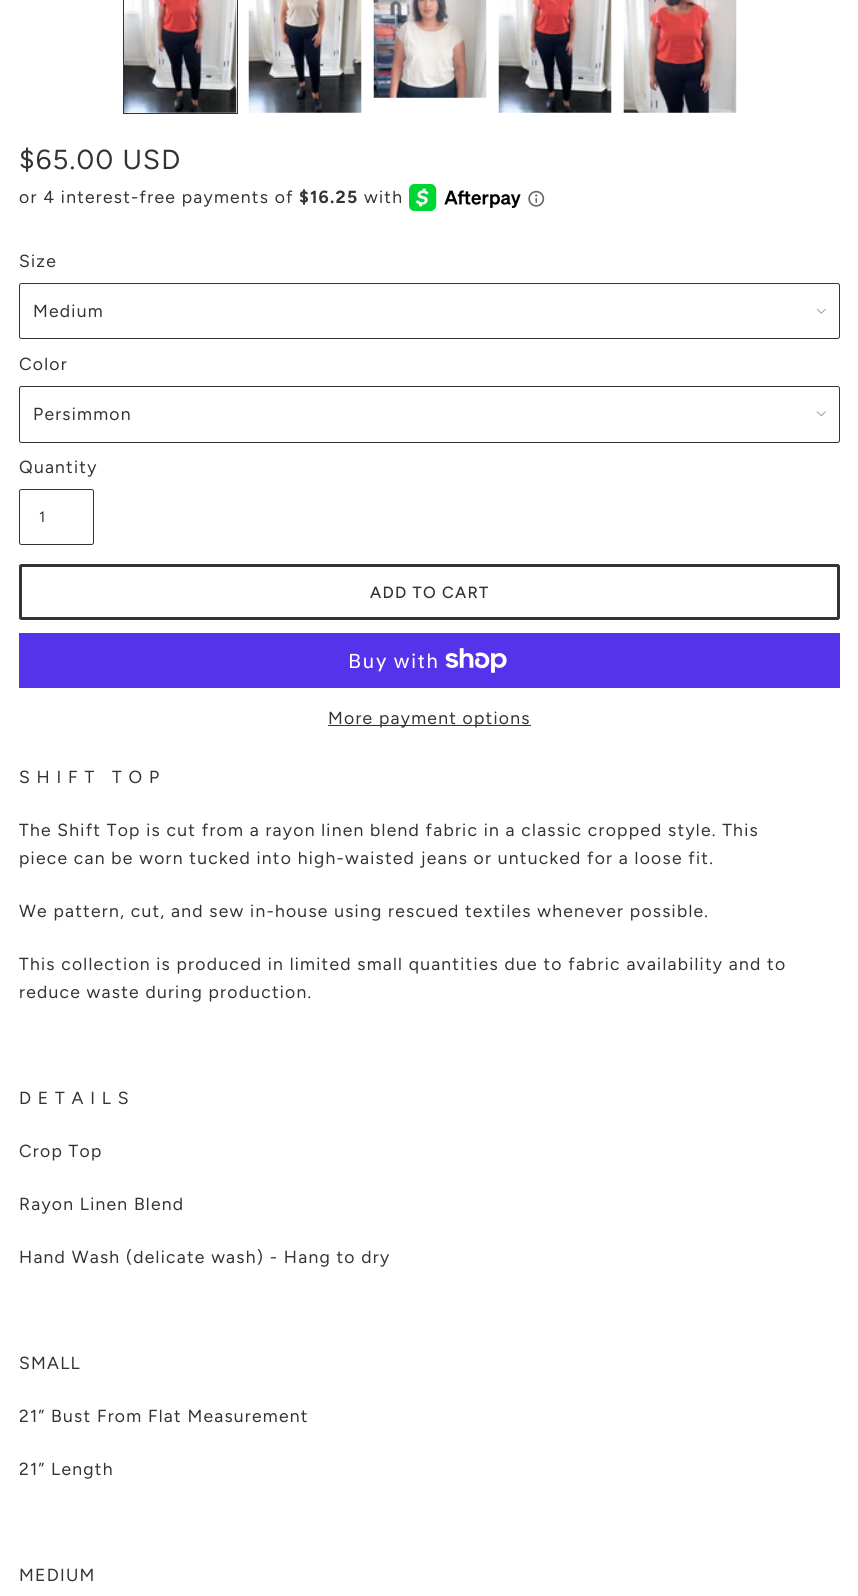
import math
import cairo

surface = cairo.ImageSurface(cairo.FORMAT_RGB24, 858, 1596)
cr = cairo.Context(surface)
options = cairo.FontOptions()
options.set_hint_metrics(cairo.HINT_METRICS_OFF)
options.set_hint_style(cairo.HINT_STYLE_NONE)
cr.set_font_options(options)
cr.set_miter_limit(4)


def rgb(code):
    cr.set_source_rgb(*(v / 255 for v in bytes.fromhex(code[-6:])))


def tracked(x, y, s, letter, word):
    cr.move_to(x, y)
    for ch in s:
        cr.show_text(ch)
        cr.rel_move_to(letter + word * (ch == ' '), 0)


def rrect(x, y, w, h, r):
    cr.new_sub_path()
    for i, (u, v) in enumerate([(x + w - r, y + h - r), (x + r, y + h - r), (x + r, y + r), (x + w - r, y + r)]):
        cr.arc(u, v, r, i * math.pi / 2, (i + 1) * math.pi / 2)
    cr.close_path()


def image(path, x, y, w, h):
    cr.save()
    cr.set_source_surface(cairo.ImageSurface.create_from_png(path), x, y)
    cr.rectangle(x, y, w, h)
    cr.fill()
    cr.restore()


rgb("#ffffff")
cr.paint()
image("img/1.png", 124, 0, 113, 113)
cr.rectangle(123.5, -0.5, 114, 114)
rgb("#333333")
cr.set_line_width(1)
cr.stroke()
image("img/2.png", 248, 0, 114, 113)
image("img/3.png", 373, 0, 114, 98)
image("img/4.png", 498, 0, 114, 113)
image("img/5.png", 623, 0, 114, 113)
image("img/6.png", 409, 184, 112, 27)
image("img/7.png", 528, 190, 17, 17)
image("img/8.png", 816, 309, 10, 5)
rrect(19.5, 283.5, 820, 55, 2)
cr.stroke()
image("img/9.png", 816, 411, 10, 5)
rrect(19.5, 386.5, 820, 56, 2)
cr.stroke()
rrect(19.5, 489.5, 74, 55, 2)
cr.stroke()
rrect(20.5, 565.5, 818, 53, 1)
cr.set_line_width(3)
cr.stroke()
rgb("#5433eb")
cr.rectangle(19, 633, 821, 55)
cr.fill()
image("img/10.png", 445, 648, 62, 25)
rgb("#333333")
cr.rectangle(328, 725, 203, 1)
cr.fill()
cr.select_font_face("Figtree")
cr.set_font_size(27.5)
tracked(19, 169, "$65.00 USD", 1.25, 0)
cr.set_font_size(17.5)
tracked(19, 203, "or 4 interest-free payments of", 1.25, 0)
cr.select_font_face("Figtree", cairo.FONT_SLANT_NORMAL, cairo.FONT_WEIGHT_BOLD)
tracked(299, 203, "$16.25", 1.25, 0)
cr.select_font_face("Figtree")
for x, y, s in [
    (364, 203, "with"),
    (19, 267, "Size"),
    (33, 317, "Medium"),
    (19, 370, "Color"),
    (33, 420, "Persimmon"),
    (19, 473, "Quantity"),
]:
    tracked(x, y, s, 1.25, 0)
cr.set_font_size(15)
tracked(39, 522, "1", 1, 0)
cr.select_font_face("Figtree Medium")
cr.set_font_size(16.25)
tracked(370, 598, "ADD TO CART", 1.25, 0)
cr.select_font_face("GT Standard")
cr.set_font_size(20)
rgb("#ffffff")
tracked(348, 668, "Buy with", 1.25, 0)
cr.select_font_face("Figtree")
cr.set_font_size(17.5)
rgb("#333333")
for x, y, s in [
    (328, 724, "More payment options"),
    (19, 783, "S H I F T   T O P"),
    (19, 836, "The Shift Top is cut from a rayon linen blend fabric in a classic cropped style. This"),
    (19, 864, "piece can be worn tucked into high-waisted jeans or untucked for a loose fit."),
    (19, 917, "We pattern, cut, and sew in-house using rescued textiles whenever possible."),
    (19, 970, "This collection is produced in limited small quantities due to fabric availability and to"),
    (19, 998, "reduce waste during production."),
    (19, 1104, "D E T A I L S"),
    (19, 1157, "Crop Top"),
    (19, 1210, "Rayon Linen Blend"),
    (19, 1263, "Hand Wash (delicate wash) - Hang to dry"),
    (19, 1369, "SMALL"),
    (19, 1422, "21” Bust From Flat Measurement"),
    (19, 1475, "21” Length"),
    (19, 1581, "MEDIUM"),
]:
    tracked(x, y, s, 1.25, 0)
surface.write_to_png("page.png")
